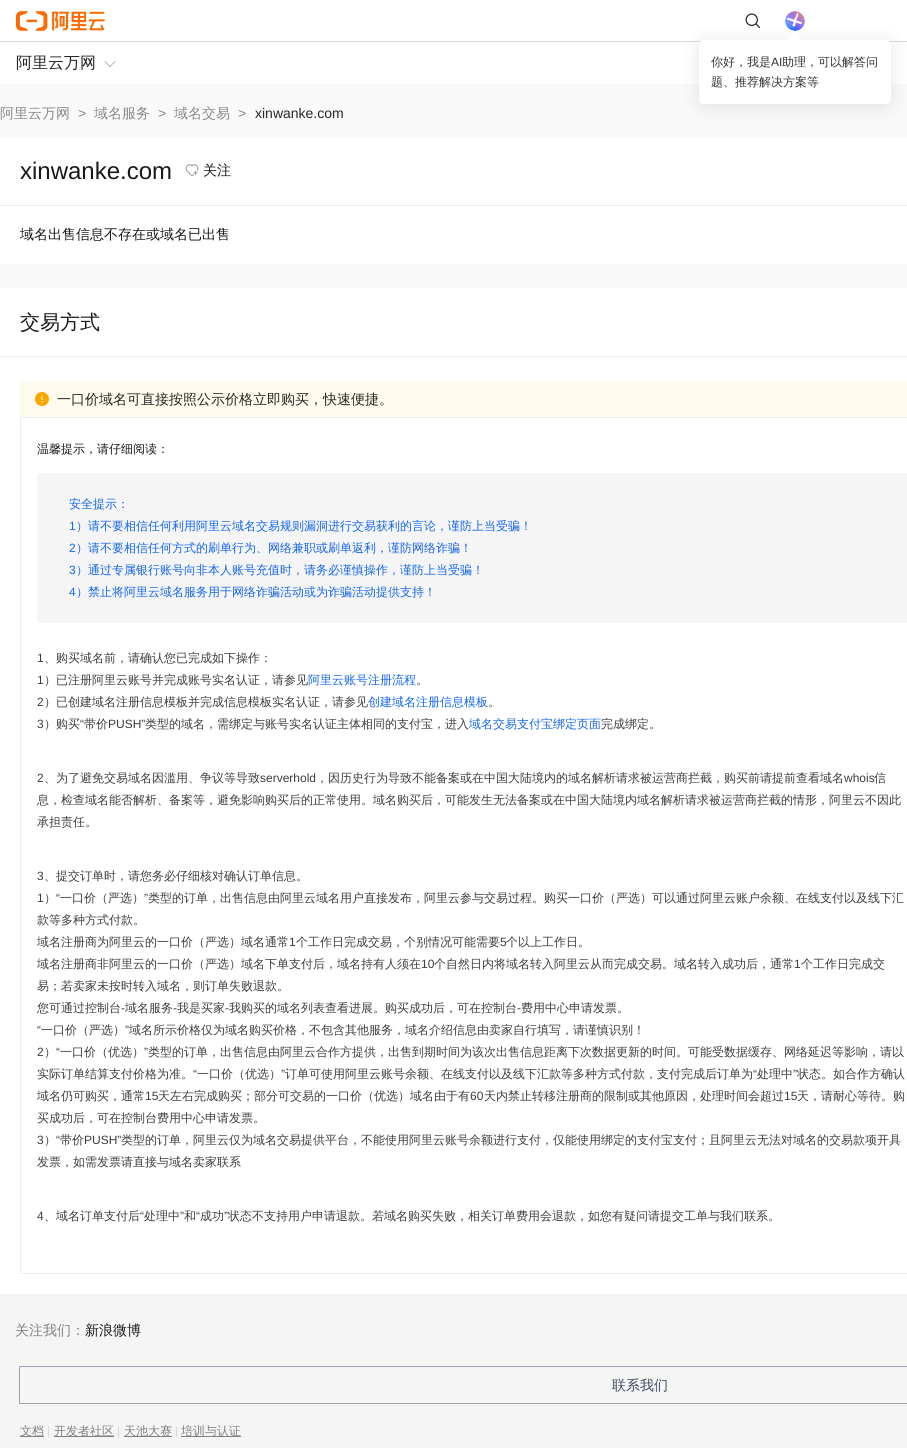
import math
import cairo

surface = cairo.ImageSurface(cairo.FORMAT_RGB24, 907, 1448)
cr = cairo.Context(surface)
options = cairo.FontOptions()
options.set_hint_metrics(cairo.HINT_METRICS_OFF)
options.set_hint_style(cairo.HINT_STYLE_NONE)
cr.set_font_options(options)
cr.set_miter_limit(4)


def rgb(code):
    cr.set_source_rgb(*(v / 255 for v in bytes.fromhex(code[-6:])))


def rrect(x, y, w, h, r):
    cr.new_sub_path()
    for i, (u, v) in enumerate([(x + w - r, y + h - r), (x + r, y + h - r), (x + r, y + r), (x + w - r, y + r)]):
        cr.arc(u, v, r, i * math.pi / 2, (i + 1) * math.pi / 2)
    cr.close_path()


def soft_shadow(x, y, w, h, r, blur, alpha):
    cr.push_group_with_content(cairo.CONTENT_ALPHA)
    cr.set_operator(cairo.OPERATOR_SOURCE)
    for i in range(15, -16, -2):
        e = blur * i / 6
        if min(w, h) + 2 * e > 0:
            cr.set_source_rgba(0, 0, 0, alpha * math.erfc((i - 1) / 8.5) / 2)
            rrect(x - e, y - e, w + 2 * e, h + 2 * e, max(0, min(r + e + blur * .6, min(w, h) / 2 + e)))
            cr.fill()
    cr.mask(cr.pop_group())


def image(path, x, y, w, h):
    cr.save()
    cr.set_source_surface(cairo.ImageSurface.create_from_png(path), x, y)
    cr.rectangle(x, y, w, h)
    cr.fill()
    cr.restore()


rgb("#f9f9f9")
cr.paint()
rgb("#ffffff")
cr.rectangle(0, 42, 907, 42)
cr.fill()
rgb("#999999")
cr.new_path()
cr.move_to(115, 61)
cr.line_to(115.5, 61.5)
cr.line_to(110, 67)
cr.line_to(109.5, 66.5)
cr.close_path()
cr.fill()
cr.new_path()
cr.move_to(105, 61)
cr.line_to(110.5, 66.5)
cr.line_to(110, 67)
cr.line_to(104.5, 61.5)
cr.close_path()
cr.fill()
rgb("#ffffff")
cr.rectangle(0, 0, 907, 41)
cr.fill()
rgb("#d7d8d9")
cr.rectangle(0, 41, 907, 1)
cr.fill()
image("img/1.png", 16, 11, 89, 20)
image("img/2.png", 745, 13, 16, 16)
image("img/3.png", 785, 11, 20, 20)
image("img/4.png", 787, 13, 16, 14)
rgb("#000000")
soft_shadow(699, 42, 192, 64, 5, 9, 0.1)
rgb("#ffffff")
rrect(699, 40, 192, 64, 5)
cr.fill()
cr.new_path()
cr.move_to(795, 33)
cr.line_to(802, 40)
cr.line_to(795, 47)
cr.line_to(788, 40)
cr.close_path()
cr.fill()
cr.rectangle(0, 137, 907, 127)
cr.fill()
rgb("#ededed")
cr.rectangle(0, 205, 907, 1)
cr.fill()
image("img/5.png", 185, 164, 14, 12)
rgb("#ffffff")
cr.rectangle(0, 288, 907, 1006)
cr.fill()
rgb("#ededed")
cr.rectangle(0, 356, 907, 1)
cr.fill()
rgb("#fffaee")
rrect(20, 381, 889, 36, 2)
cr.fill()
image("img/6.png", 35, 392, 14, 14)
cr.rectangle(20.5, 417.5, 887, 856)
rgb("#ededed")
cr.set_line_width(1)
cr.stroke()
rgb("#f5f5f6")
cr.rectangle(37, 473, 870, 150)
cr.fill()
cr.rectangle(0, 1294, 907, 154)
cr.fill()
cr.rectangle(19.5, 1366.5, 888, 37)
rgb("#9ca4af")
cr.stroke()
for x, y, w, h, color in [
    (20, 1436, 24, 1, "#808080"),
    (54, 1436, 60, 1, "#808080"),
    (124, 1436, 48, 1, "#808080"),
    (181, 1436, 60, 1, "#808080"),
]:
    rgb(color)
    cr.rectangle(x, y, w, h)
    cr.fill()
cr.select_font_face("WenQuanYi Zen Hei Medium")
cr.set_font_size(16)
rgb("#262626")
cr.move_to(16, 68)
cr.show_text("阿里云万网")
cr.set_font_size(12)
rgb("#333333")
cr.move_to(711, 66)
cr.show_text("你好，我是")
cr.select_font_face("Liberation Sans")
cr.move_to(771, 66)
cr.show_text("AI")
cr.select_font_face("WenQuanYi Zen Hei Medium")
cr.move_to(782, 66)
cr.show_text("助理，可以解答问")
cr.move_to(711, 86)
cr.show_text("题、推荐解决方案等")
cr.set_font_size(14)
rgb("#898989")
cr.move_to(0, 118)
cr.show_text("阿里云万网")
cr.select_font_face("Liberation Sans")
cr.move_to(78, 118)
cr.show_text(">")
cr.select_font_face("WenQuanYi Zen Hei Medium")
cr.move_to(94, 118)
cr.show_text("域名服务")
cr.select_font_face("Liberation Sans")
cr.move_to(158, 118)
cr.show_text(">")
cr.select_font_face("WenQuanYi Zen Hei Medium")
cr.move_to(174, 118)
cr.show_text("域名交易")
cr.select_font_face("Liberation Sans")
cr.move_to(238, 118)
cr.show_text(">")
rgb("#262626")
cr.move_to(255, 118)
cr.show_text("xinwanke.com")
cr.set_font_size(24)
rgb("#181818")
cr.move_to(20, 179)
cr.show_text("xinwanke.com")
cr.select_font_face("WenQuanYi Zen Hei Medium")
cr.set_font_size(14)
cr.move_to(203, 175)
cr.show_text("关注")
cr.move_to(20, 239)
cr.show_text("域名出售信息不存在或域名已出售")
cr.set_font_size(20)
cr.move_to(20, 329)
cr.show_text("交易方式")
cr.set_font_size(14)
rgb("#262626")
cr.move_to(57, 404)
cr.show_text("一口价域名可直接按照公示价格立即购买，快速便捷。")
cr.set_font_size(12)
rgb("#181818")
cr.move_to(37, 453)
cr.show_text("温馨提示，请仔细阅读：")
rgb("#1366ec")
cr.move_to(69, 508)
cr.show_text("安全提示：")
cr.select_font_face("Liberation Sans")
cr.move_to(69, 530)
cr.show_text("1")
cr.select_font_face("WenQuanYi Zen Hei Medium")
cr.move_to(76, 530)
cr.show_text("）请不要相信任何利用阿里云域名交易规则漏洞进行交易获利的言论，谨防上当受骗！")
cr.select_font_face("Liberation Sans")
cr.move_to(69, 552)
cr.show_text("2")
cr.select_font_face("WenQuanYi Zen Hei Medium")
cr.move_to(76, 552)
cr.show_text("）请不要相信任何方式的刷单行为、网络兼职或刷单返利，谨防网络诈骗！")
cr.select_font_face("Liberation Sans")
cr.move_to(69, 574)
cr.show_text("3")
cr.select_font_face("WenQuanYi Zen Hei Medium")
cr.move_to(76, 574)
cr.show_text("）通过专属银行账号向非本人账号充值时，请务必谨慎操作，谨防上当受骗！")
cr.select_font_face("Liberation Sans")
cr.move_to(69, 596)
cr.show_text("4")
cr.select_font_face("WenQuanYi Zen Hei Medium")
cr.move_to(76, 596)
cr.show_text("）禁止将阿里云域名服务用于网络诈骗活动或为诈骗活动提供支持！")
cr.select_font_face("Liberation Sans")
rgb("#3d3d3d")
cr.move_to(37, 662)
cr.show_text("1")
cr.select_font_face("WenQuanYi Zen Hei Medium")
cr.move_to(44, 662)
cr.show_text("、购买域名前，请确认您已完成如下操作：")
cr.select_font_face("Liberation Sans")
cr.move_to(37, 684)
cr.show_text("1")
cr.select_font_face("WenQuanYi Zen Hei Medium")
cr.move_to(44, 684)
cr.show_text("）已注册阿里云账号并完成账号实名认证，请参见")
rgb("#1366ec")
cr.move_to(308, 684)
cr.show_text("阿里云账号注册流程")
rgb("#3d3d3d")
cr.move_to(416, 684)
cr.show_text("。")
cr.select_font_face("Liberation Sans")
cr.move_to(37, 706)
cr.show_text("2")
cr.select_font_face("WenQuanYi Zen Hei Medium")
cr.move_to(44, 706)
cr.show_text("）已创建域名注册信息模板并完成信息模板实名认证，请参见")
rgb("#1366ec")
cr.move_to(368, 706)
cr.show_text("创建域名注册信息模板")
rgb("#3d3d3d")
cr.move_to(488, 706)
cr.show_text("。")
cr.select_font_face("Liberation Sans")
cr.move_to(37, 728)
cr.show_text("3")
cr.select_font_face("WenQuanYi Zen Hei Medium")
cr.move_to(44, 728)
cr.show_text("）购买")
cr.select_font_face("Liberation Sans")
cr.move_to(80, 728)
cr.show_text("“")
cr.select_font_face("WenQuanYi Zen Hei Medium")
cr.move_to(84, 728)
cr.show_text("带价")
cr.select_font_face("Liberation Sans")
cr.move_to(108, 728)
cr.show_text("PUSH”")
cr.select_font_face("WenQuanYi Zen Hei Medium")
cr.move_to(145, 728)
cr.show_text("类型的域名，需绑定与账号实名认证主体相同的支付宝，进入")
rgb("#1366ec")
cr.move_to(469, 728)
cr.show_text("域名交易支付宝绑定页面")
rgb("#3d3d3d")
cr.move_to(601, 728)
cr.show_text("完成绑定。")
cr.select_font_face("Liberation Sans")
cr.move_to(37, 782)
cr.show_text("2")
cr.select_font_face("WenQuanYi Zen Hei Medium")
cr.move_to(44, 782)
cr.show_text("、为了避免交易域名因滥用、争议等导致")
cr.select_font_face("Liberation Sans")
cr.move_to(260, 782)
cr.show_text("serverhold")
cr.select_font_face("WenQuanYi Zen Hei Medium")
cr.move_to(316, 782)
cr.show_text("，因历史行为导致不能备案或在中国大陆境内的域名解析请求被运营商拦截，购买前请提前查看域名")
cr.select_font_face("Liberation Sans")
cr.move_to(844, 782)
cr.show_text("whois")
cr.select_font_face("WenQuanYi Zen Hei Medium")
for x, y, s in [
    (874, 782, "信"),
    (37, 804, "息，检查域名能否解析、备案等，避免影响购买后的正常使用。域名购买后，可能发生无法备案或在中国大陆境内域名解析请求被运营商拦截的情形，阿里云不因此"),
    (37, 826, "承担责任。"),
]:
    cr.move_to(x, y)
    cr.show_text(s)
cr.select_font_face("Liberation Sans")
cr.move_to(37, 880)
cr.show_text("3")
cr.select_font_face("WenQuanYi Zen Hei Medium")
cr.move_to(44, 880)
cr.show_text("、提交订单时，请您务必仔细核对确认订单信息。")
cr.select_font_face("Liberation Sans")
cr.move_to(37, 902)
cr.show_text("1")
cr.select_font_face("WenQuanYi Zen Hei Medium")
cr.move_to(44, 902)
cr.show_text("）")
cr.select_font_face("Liberation Sans")
cr.move_to(56, 902)
cr.show_text("“")
cr.select_font_face("WenQuanYi Zen Hei Medium")
cr.move_to(60, 902)
cr.show_text("一口价（严选）")
cr.select_font_face("Liberation Sans")
cr.move_to(144, 902)
cr.show_text("”")
cr.select_font_face("WenQuanYi Zen Hei Medium")
for x, y, s in [
    (148, 902, "类型的订单，出售信息由阿里云域名用户直接发布，阿里云参与交易过程。购买一口价（严选）可以通过阿里云账户余额、在线支付以及线下汇"),
    (37, 924, "款等多种方式付款。"),
    (37, 946, "域名注册商为阿里云的一口价（严选）域名通常"),
]:
    cr.move_to(x, y)
    cr.show_text(s)
cr.select_font_face("Liberation Sans")
cr.move_to(289, 946)
cr.show_text("1")
cr.select_font_face("WenQuanYi Zen Hei Medium")
cr.move_to(296, 946)
cr.show_text("个工作日完成交易，个别情况可能需要")
cr.select_font_face("Liberation Sans")
cr.move_to(500, 946)
cr.show_text("5")
cr.select_font_face("WenQuanYi Zen Hei Medium")
cr.move_to(506, 946)
cr.show_text("个以上工作日。")
cr.move_to(37, 968)
cr.show_text("域名注册商非阿里云的一口价（严选）域名下单支付后，域名持有人须在")
cr.select_font_face("Liberation Sans")
cr.move_to(421, 968)
cr.show_text("10")
cr.select_font_face("WenQuanYi Zen Hei Medium")
cr.move_to(434, 968)
cr.show_text("个自然日内将域名转入阿里云从而完成交易。域名转入成功后，通常")
cr.select_font_face("Liberation Sans")
cr.move_to(794, 968)
cr.show_text("1")
cr.select_font_face("WenQuanYi Zen Hei Medium")
for x, y, s in [
    (801, 968, "个工作日完成交"),
    (37, 990, "易；若卖家未按时转入域名，则订单失败退款。"),
    (37, 1012, "您可通过控制台"),
]:
    cr.move_to(x, y)
    cr.show_text(s)
cr.select_font_face("Liberation Sans")
cr.move_to(121, 1012)
cr.show_text("-")
cr.select_font_face("WenQuanYi Zen Hei Medium")
cr.move_to(125, 1012)
cr.show_text("域名服务")
cr.select_font_face("Liberation Sans")
cr.move_to(173, 1012)
cr.show_text("-")
cr.select_font_face("WenQuanYi Zen Hei Medium")
cr.move_to(177, 1012)
cr.show_text("我是买家")
cr.select_font_face("Liberation Sans")
cr.move_to(225, 1012)
cr.show_text("-")
cr.select_font_face("WenQuanYi Zen Hei Medium")
cr.move_to(229, 1012)
cr.show_text("我购买的域名列表查看进展。购买成功后，可在控制台")
cr.select_font_face("Liberation Sans")
cr.move_to(517, 1012)
cr.show_text("-")
cr.select_font_face("WenQuanYi Zen Hei Medium")
cr.move_to(521, 1012)
cr.show_text("费用中心申请发票。")
cr.select_font_face("Liberation Sans")
cr.move_to(37, 1034)
cr.show_text("“")
cr.select_font_face("WenQuanYi Zen Hei Medium")
cr.move_to(41, 1034)
cr.show_text("一口价（严选）")
cr.select_font_face("Liberation Sans")
cr.move_to(125, 1034)
cr.show_text("”")
cr.select_font_face("WenQuanYi Zen Hei Medium")
cr.move_to(129, 1034)
cr.show_text("域名所示价格仅为域名购买价格，不包含其他服务，域名介绍信息由卖家自行填写，请谨慎识别！")
cr.select_font_face("Liberation Sans")
cr.move_to(37, 1056)
cr.show_text("2")
cr.select_font_face("WenQuanYi Zen Hei Medium")
cr.move_to(44, 1056)
cr.show_text("）")
cr.select_font_face("Liberation Sans")
cr.move_to(56, 1056)
cr.show_text("“")
cr.select_font_face("WenQuanYi Zen Hei Medium")
cr.move_to(60, 1056)
cr.show_text("一口价（优选）")
cr.select_font_face("Liberation Sans")
cr.move_to(144, 1056)
cr.show_text("”")
cr.select_font_face("WenQuanYi Zen Hei Medium")
cr.move_to(148, 1056)
cr.show_text("类型的订单，出售信息由阿里云合作方提供，出售到期时间为该次出售信息距离下次数据更新的时间。可能受数据缓存、网络延迟等影响，请以")
cr.move_to(37, 1078)
cr.show_text("实际订单结算支付价格为准。")
cr.select_font_face("Liberation Sans")
cr.move_to(193, 1078)
cr.show_text("“")
cr.select_font_face("WenQuanYi Zen Hei Medium")
cr.move_to(197, 1078)
cr.show_text("一口价（优选）")
cr.select_font_face("Liberation Sans")
cr.move_to(281, 1078)
cr.show_text("”")
cr.select_font_face("WenQuanYi Zen Hei Medium")
cr.move_to(285, 1078)
cr.show_text("订单可使用阿里云账号余额、在线支付以及线下汇款等多种方式付款，支付完成后订单为")
cr.select_font_face("Liberation Sans")
cr.move_to(753, 1078)
cr.show_text("“")
cr.select_font_face("WenQuanYi Zen Hei Medium")
cr.move_to(757, 1078)
cr.show_text("处理中")
cr.select_font_face("Liberation Sans")
cr.move_to(793, 1078)
cr.show_text("”")
cr.select_font_face("WenQuanYi Zen Hei Medium")
cr.move_to(797, 1078)
cr.show_text("状态。如合作方确认")
cr.move_to(37, 1100)
cr.show_text("域名仍可购买，通常")
cr.select_font_face("Liberation Sans")
cr.move_to(145, 1100)
cr.show_text("15")
cr.select_font_face("WenQuanYi Zen Hei Medium")
cr.move_to(158, 1100)
cr.show_text("天左右完成购买；部分可交易的一口价（优选）域名由于有")
cr.select_font_face("Liberation Sans")
cr.move_to(470, 1100)
cr.show_text("60")
cr.select_font_face("WenQuanYi Zen Hei Medium")
cr.move_to(484, 1100)
cr.show_text("天内禁止转移注册商的限制或其他原因，处理时间会超过")
cr.select_font_face("Liberation Sans")
cr.move_to(784, 1100)
cr.show_text("15")
cr.select_font_face("WenQuanYi Zen Hei Medium")
cr.move_to(797, 1100)
cr.show_text("天，请耐心等待。购")
cr.move_to(37, 1122)
cr.show_text("买成功后，可在控制台费用中心申请发票。")
cr.select_font_face("Liberation Sans")
cr.move_to(37, 1144)
cr.show_text("3")
cr.select_font_face("WenQuanYi Zen Hei Medium")
cr.move_to(44, 1144)
cr.show_text("）")
cr.select_font_face("Liberation Sans")
cr.move_to(56, 1144)
cr.show_text("“")
cr.select_font_face("WenQuanYi Zen Hei Medium")
cr.move_to(60, 1144)
cr.show_text("带价")
cr.select_font_face("Liberation Sans")
cr.move_to(84, 1144)
cr.show_text("PUSH”")
cr.select_font_face("WenQuanYi Zen Hei Medium")
cr.move_to(121, 1144)
cr.show_text("类型的订单，阿里云仅为域名交易提供平台，不能使用阿里云账号余额进行支付，仅能使用绑定的支付宝支付；且阿里云无法对域名的交易款项开具")
cr.move_to(37, 1166)
cr.show_text("发票，如需发票请直接与域名卖家联系")
cr.select_font_face("Liberation Sans")
cr.move_to(37, 1220)
cr.show_text("4")
cr.select_font_face("WenQuanYi Zen Hei Medium")
cr.move_to(44, 1220)
cr.show_text("、域名订单支付后")
cr.select_font_face("Liberation Sans")
cr.move_to(140, 1220)
cr.show_text("“")
cr.select_font_face("WenQuanYi Zen Hei Medium")
cr.move_to(144, 1220)
cr.show_text("处理中")
cr.select_font_face("Liberation Sans")
cr.move_to(180, 1220)
cr.show_text("”")
cr.select_font_face("WenQuanYi Zen Hei Medium")
cr.move_to(184, 1220)
cr.show_text("和")
cr.select_font_face("Liberation Sans")
cr.move_to(196, 1220)
cr.show_text("“")
cr.select_font_face("WenQuanYi Zen Hei Medium")
cr.move_to(200, 1220)
cr.show_text("成功")
cr.select_font_face("Liberation Sans")
cr.move_to(224, 1220)
cr.show_text("”")
cr.select_font_face("WenQuanYi Zen Hei Medium")
cr.move_to(228, 1220)
cr.show_text("状态不支持用户申请退款。若域名购买失败，相关订单费用会退款，如您有疑问请提交工单与我们联系。")
cr.set_font_size(14)
rgb("#808080")
cr.move_to(15, 1335)
cr.show_text("关注我们：")
rgb("#181818")
cr.move_to(85, 1335)
cr.show_text("新浪微博")
rgb("#3d495c")
cr.move_to(612, 1390)
cr.show_text("联系我们")
cr.set_font_size(12)
rgb("#808080")
cr.move_to(20, 1435)
cr.show_text("文档")
cr.select_font_face("Liberation Sans")
rgb("#d7d8d9")
cr.move_to(47, 1435)
cr.show_text("|")
cr.select_font_face("WenQuanYi Zen Hei Medium")
rgb("#808080")
cr.move_to(54, 1435)
cr.show_text("开发者社区")
cr.select_font_face("Liberation Sans")
rgb("#d7d8d9")
cr.move_to(117, 1435)
cr.show_text("|")
cr.select_font_face("WenQuanYi Zen Hei Medium")
rgb("#808080")
cr.move_to(124, 1435)
cr.show_text("天池大赛")
cr.select_font_face("Liberation Sans")
rgb("#d7d8d9")
cr.move_to(175, 1435)
cr.show_text("|")
cr.select_font_face("WenQuanYi Zen Hei Medium")
rgb("#808080")
cr.move_to(181, 1435)
cr.show_text("培训与认证")
surface.write_to_png("page.png")
